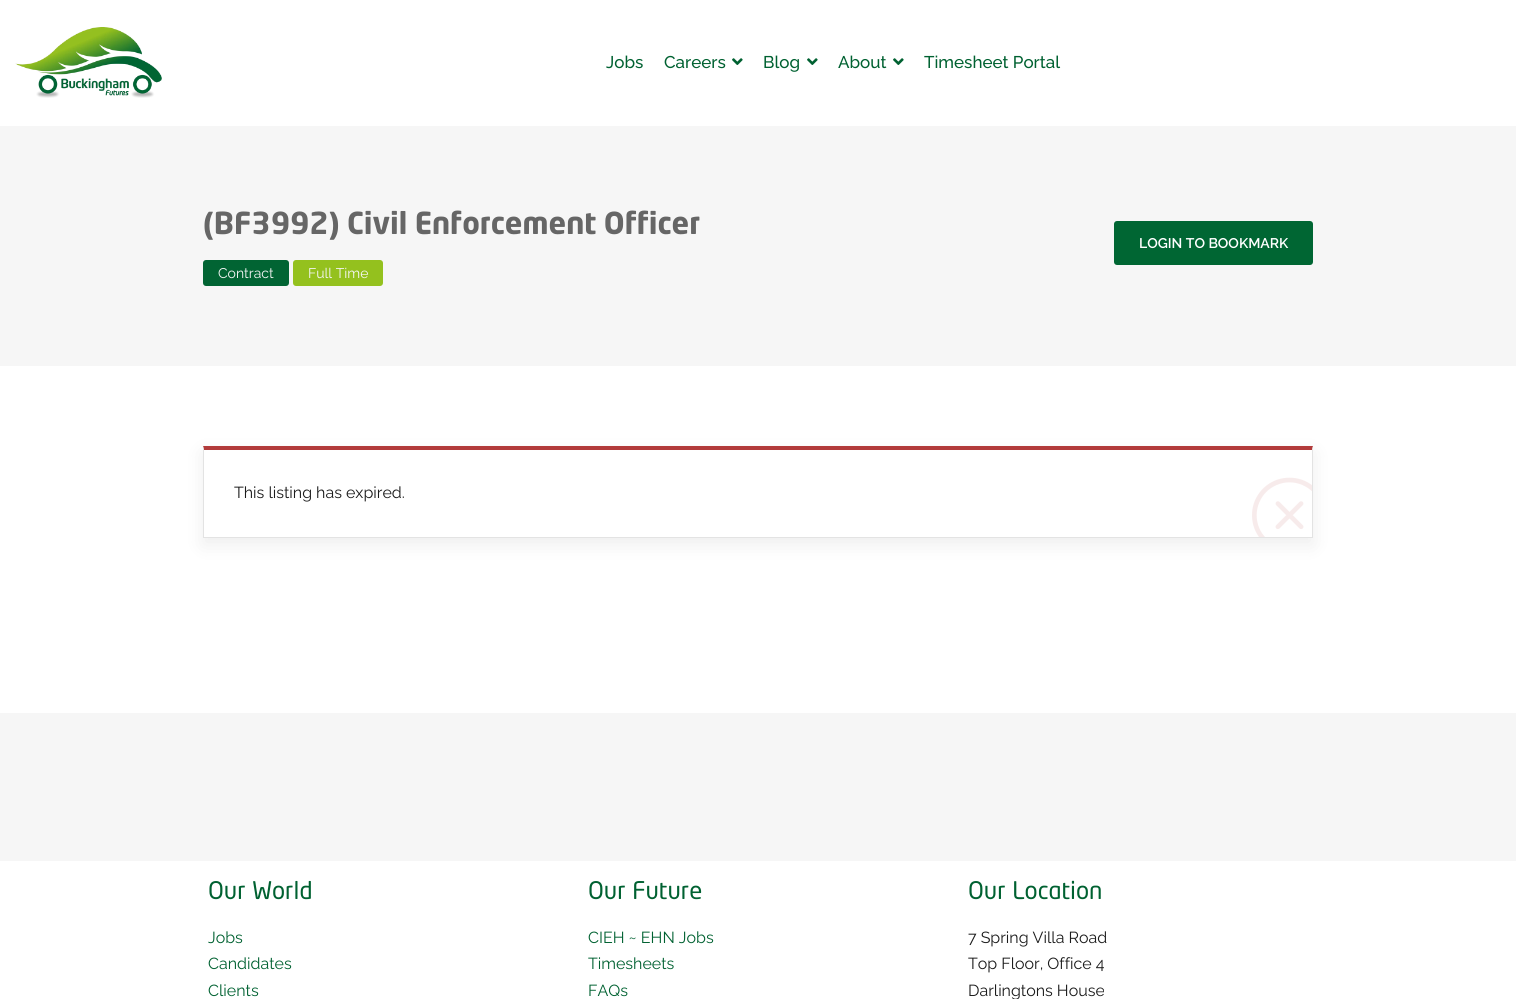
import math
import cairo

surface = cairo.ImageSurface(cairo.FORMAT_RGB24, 1516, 999)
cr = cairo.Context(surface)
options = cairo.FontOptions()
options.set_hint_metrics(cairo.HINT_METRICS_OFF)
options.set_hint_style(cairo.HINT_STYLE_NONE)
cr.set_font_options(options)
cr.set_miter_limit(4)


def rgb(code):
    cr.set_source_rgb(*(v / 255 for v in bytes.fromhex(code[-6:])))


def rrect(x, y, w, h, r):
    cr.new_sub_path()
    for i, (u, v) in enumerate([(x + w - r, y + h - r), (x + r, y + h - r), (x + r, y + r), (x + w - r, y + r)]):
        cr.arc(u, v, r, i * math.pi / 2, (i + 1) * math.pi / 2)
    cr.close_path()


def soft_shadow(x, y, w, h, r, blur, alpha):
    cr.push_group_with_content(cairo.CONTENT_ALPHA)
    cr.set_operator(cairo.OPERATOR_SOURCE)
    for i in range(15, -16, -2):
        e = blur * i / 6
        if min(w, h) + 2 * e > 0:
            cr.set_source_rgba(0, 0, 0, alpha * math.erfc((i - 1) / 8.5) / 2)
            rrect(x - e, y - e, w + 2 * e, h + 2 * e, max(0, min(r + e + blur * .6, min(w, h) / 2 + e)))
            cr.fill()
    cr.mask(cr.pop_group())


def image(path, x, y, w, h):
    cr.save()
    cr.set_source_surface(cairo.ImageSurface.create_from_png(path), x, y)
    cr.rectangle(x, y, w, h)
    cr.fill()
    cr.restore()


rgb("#ffffff")
cr.paint()
image("img/1.png", 15, 27, 147, 71)
image("img/2.png", 732, 58, 11, 7)
image("img/2.png", 807, 58, 11, 7)
image("img/2.png", 893, 58, 11, 7)
rgb("#f6f6f6")
cr.rectangle(0, 126, 1516, 240)
cr.fill()
rgb("#016433")
rrect(203, 260, 86, 26, 3)
cr.fill()
rgb("#94c11e")
rrect(293, 260, 90, 26, 3)
cr.fill()
rgb("#006633")
rrect(1114, 221, 199, 44, 3)
cr.fill()
cr.save()
cr.set_fill_rule(cairo.FILL_RULE_EVEN_ODD)
cr.new_path()
cr.move_to(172, 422)
cr.line_to(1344, 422)
cr.line_to(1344, 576)
cr.line_to(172, 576)
cr.close_path()
cr.move_to(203, 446)
cr.line_to(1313, 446)
cr.line_to(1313, 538)
cr.line_to(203, 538)
cr.close_path()
cr.clip()
rgb("#000000")
soft_shadow(203, 453, 1110, 92, 0, 10, 0.07)
cr.restore()
rgb("#b23b3b")
cr.new_path()
cr.move_to(203, 446)
cr.line_to(1313, 446)
cr.line_to(1312, 450)
cr.line_to(204, 450)
cr.close_path()
cr.fill()
rgb("#e3e3e3")
cr.new_path()
cr.move_to(1313, 446)
cr.line_to(1313, 538)
cr.line_to(1312, 537)
cr.line_to(1312, 450)
cr.close_path()
cr.fill()
cr.rectangle(203, 537, 1110, 1)
cr.fill()
cr.new_path()
cr.move_to(203, 538)
cr.line_to(203, 446)
cr.line_to(204, 450)
cr.line_to(204, 537)
cr.close_path()
cr.fill()
image("img/3.png", 1252, 477, 60, 60)
rgb("#f6f6f6")
cr.rectangle(0, 713, 1516, 148)
cr.fill()
cr.select_font_face("Raleway Medium")
cr.set_font_size(17)
rgb("#006131")
for x, y, s in [
    (606, 68, "Jobs"),
    (664, 68, "Careers"),
    (763, 68, "Blog"),
    (838, 68, "About"),
    (924, 68, "Timesheet Portal"),
]:
    cr.move_to(x, y)
    cr.show_text(s)
cr.select_font_face("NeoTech", cairo.FONT_SLANT_NORMAL, cairo.FONT_WEIGHT_BOLD)
cr.set_font_size(30)
rgb("#666666")
cr.move_to(203, 234)
cr.show_text("(BF3992) Civil Enforcement Officer")
cr.select_font_face("Raleway")
cr.set_font_size(14)
rgb("#f6f6f6")
cr.move_to(218, 278)
cr.show_text("Contract")
cr.move_to(308, 278)
cr.show_text("Full Time")
cr.select_font_face("Raleway SemiBold")
rgb("#ffffff")
cr.move_to(1139, 248)
cr.show_text("LOGIN TO BOOKMARK")
cr.select_font_face("Raleway")
cr.set_font_size(16)
rgb("#1b1b1b")
cr.move_to(234, 498)
cr.show_text("This listing has expired.")
cr.select_font_face("NeoTech")
cr.set_font_size(24)
rgb("#006131")
cr.move_to(208, 899)
cr.show_text("Our World")
cr.select_font_face("Raleway")
cr.set_font_size(16)
for x, y, s in [
    (208, 943, "Jobs"),
    (208, 969, "Candidates"),
    (208, 996, "Clients"),
]:
    cr.move_to(x, y)
    cr.show_text(s)
cr.select_font_face("NeoTech")
cr.set_font_size(24)
cr.move_to(588, 899)
cr.show_text("Our Future")
cr.select_font_face("Raleway")
cr.set_font_size(16)
for x, y, s in [
    (588, 943, "CIEH ~ EHN Jobs"),
    (588, 969, "Timesheets"),
    (588, 996, "FAQs"),
]:
    cr.move_to(x, y)
    cr.show_text(s)
cr.select_font_face("NeoTech")
cr.set_font_size(24)
cr.move_to(968, 899)
cr.show_text("Our Location")
cr.select_font_face("Raleway")
cr.set_font_size(16)
rgb("#1b1b1b")
for x, y, s in [
    (968, 943, "7 Spring Villa Road"),
    (968, 969, "Top Floor, Office 4"),
    (968, 996, "Darlingtons House"),
]:
    cr.move_to(x, y)
    cr.show_text(s)
surface.write_to_png("page.png")
